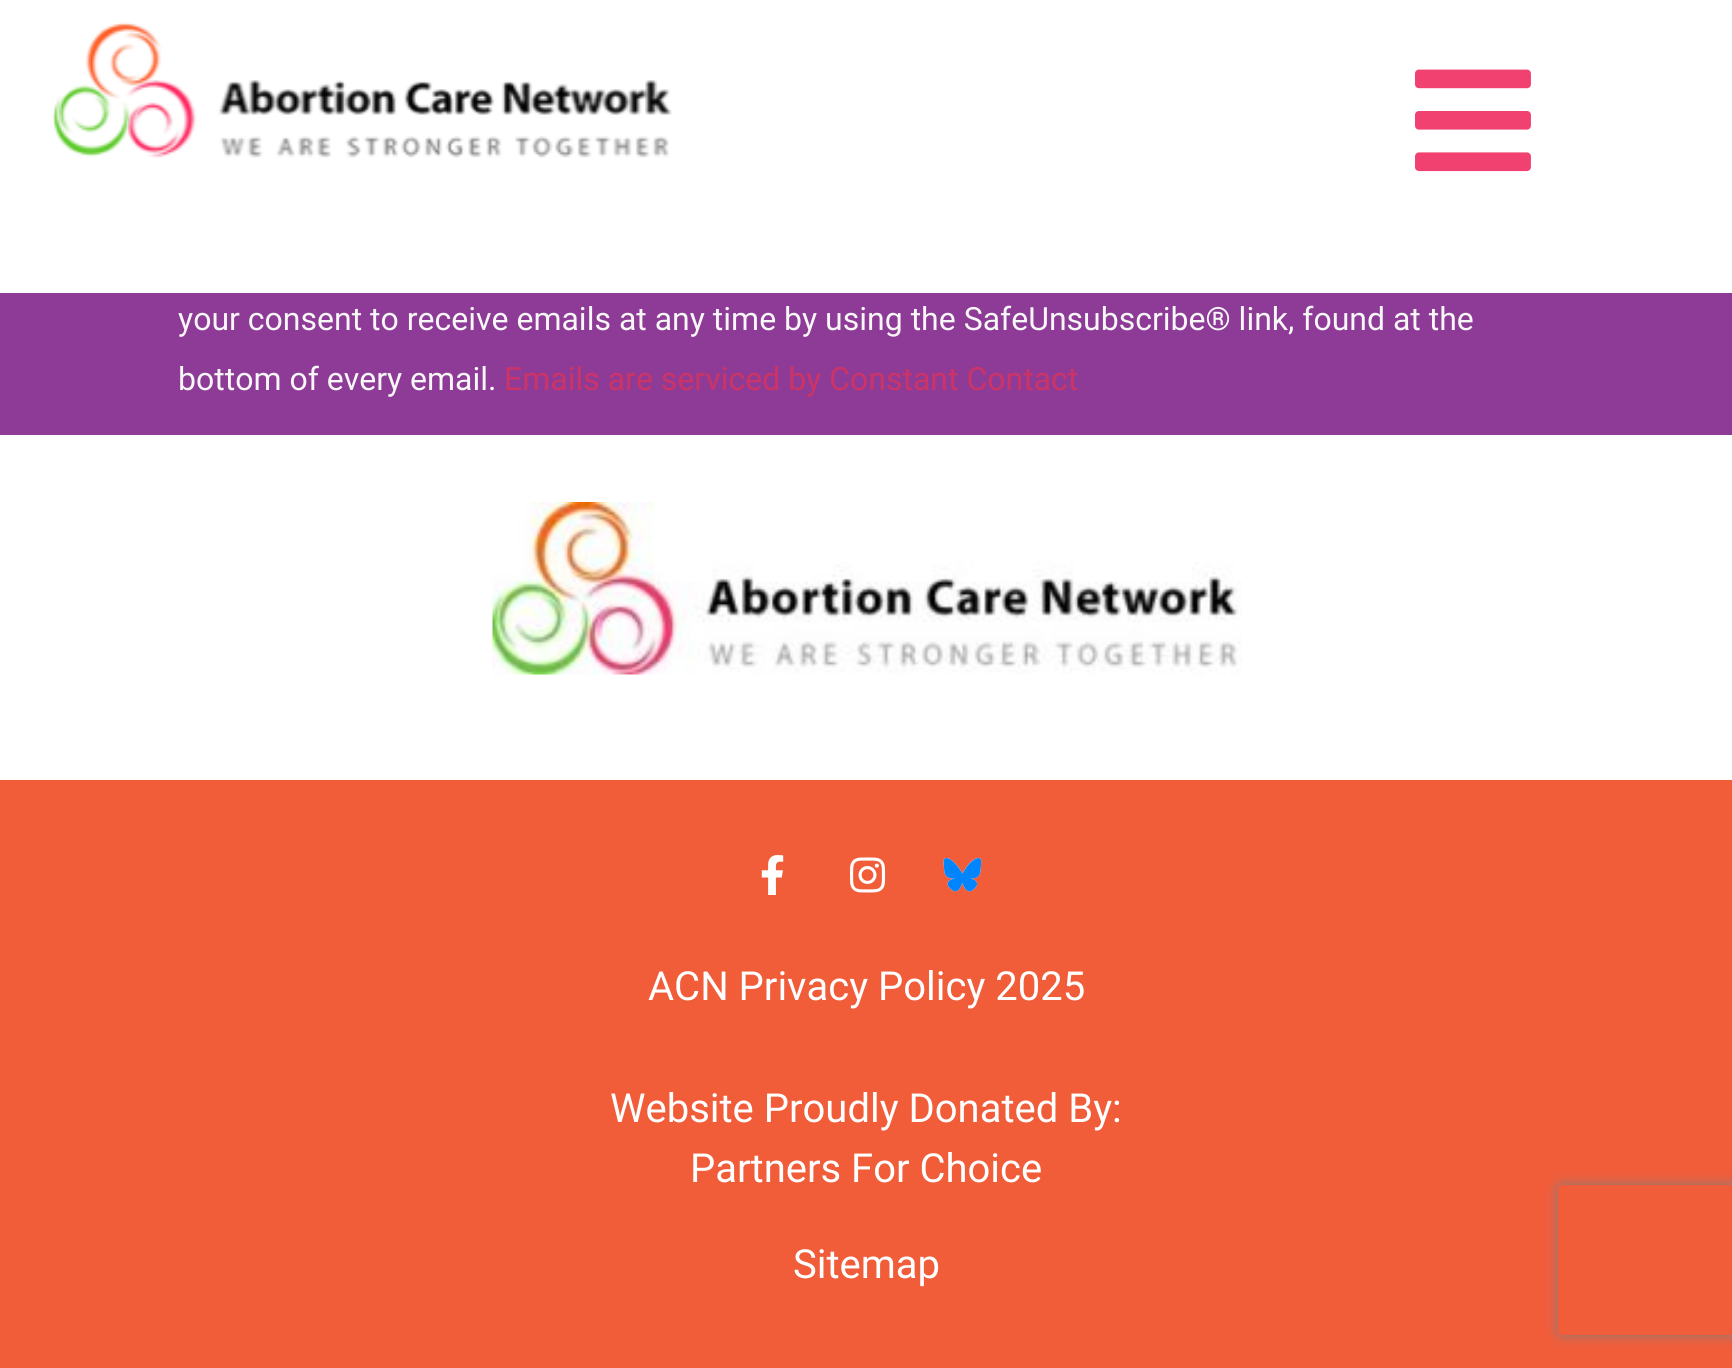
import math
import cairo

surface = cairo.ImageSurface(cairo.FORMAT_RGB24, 1732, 1368)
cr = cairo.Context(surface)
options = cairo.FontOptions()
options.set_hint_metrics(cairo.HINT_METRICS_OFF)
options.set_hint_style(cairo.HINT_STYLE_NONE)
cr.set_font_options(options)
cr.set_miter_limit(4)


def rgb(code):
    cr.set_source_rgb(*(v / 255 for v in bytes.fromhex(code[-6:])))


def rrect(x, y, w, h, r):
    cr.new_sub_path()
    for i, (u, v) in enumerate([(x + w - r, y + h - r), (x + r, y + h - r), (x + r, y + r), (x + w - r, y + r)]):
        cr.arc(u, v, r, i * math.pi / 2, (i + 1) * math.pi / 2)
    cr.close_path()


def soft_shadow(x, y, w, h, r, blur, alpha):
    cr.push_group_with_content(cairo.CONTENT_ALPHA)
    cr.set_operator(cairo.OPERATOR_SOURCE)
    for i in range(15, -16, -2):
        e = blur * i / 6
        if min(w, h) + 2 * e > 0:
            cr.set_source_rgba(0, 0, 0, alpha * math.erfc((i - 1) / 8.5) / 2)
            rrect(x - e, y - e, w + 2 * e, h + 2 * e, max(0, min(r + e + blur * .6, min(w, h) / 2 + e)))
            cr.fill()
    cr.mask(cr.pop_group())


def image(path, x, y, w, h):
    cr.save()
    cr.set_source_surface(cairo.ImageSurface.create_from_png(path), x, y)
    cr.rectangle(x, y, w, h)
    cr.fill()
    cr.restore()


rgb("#ffffff")
cr.paint()
image("img/1.png", 52, 22, 621, 136)
image("img/2.png", 1415, 69, 116, 103)
rgb("#8e3b97")
cr.rectangle(0, 293, 1732, 142)
cr.fill()
image("img/3.png", 492, 502, 750, 173)
rgb("#f15c39")
cr.rectangle(0, 780, 1732, 588)
cr.fill()
image("img/4.png", 761, 855, 23, 40)
image("img/5.png", 850, 857, 36, 36)
image("img/6.png", 943, 858, 39, 34)
cr.save()
cr.set_fill_rule(cairo.FILL_RULE_EVEN_ODD)
cr.new_path()
cr.move_to(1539, 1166)
cr.line_to(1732, 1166)
cr.line_to(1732, 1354)
cr.line_to(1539, 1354)
cr.close_path()
cr.move_to(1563, 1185)
cr.line_to(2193, 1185)
cr.curve_to(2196, 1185, 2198, 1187, 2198, 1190)
cr.line_to(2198, 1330)
cr.curve_to(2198, 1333, 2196, 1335, 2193, 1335)
cr.line_to(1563, 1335)
cr.curve_to(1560, 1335, 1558, 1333, 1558, 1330)
cr.line_to(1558, 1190)
cr.curve_to(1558, 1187, 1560, 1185, 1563, 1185)
cr.close_path()
cr.clip()
rgb("#808080")
soft_shadow(1558, 1185, 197, 150, 5, 6, 1)
cr.restore()
cr.select_font_face("Roboto")
cr.set_font_size(32)
rgb("#f7f7f7")
cr.move_to(178, 330)
cr.show_text("your consent to receive emails at any time by using the SafeUnsubscribe® link, found at the")
cr.move_to(178, 390)
cr.show_text("bottom of every email.")
rgb("#cc3366")
cr.move_to(504, 390)
cr.show_text("Emails are serviced by Constant Contact")
cr.set_font_size(40)
rgb("#ffffff")
for x, y, s in [
    (648, 1000, "ACN Privacy Policy 2025"),
    (610, 1122, "Website Proudly Donated By:"),
    (690, 1182, "Partners For Choice"),
    (793, 1278, "Sitemap"),
]:
    cr.move_to(x, y)
    cr.show_text(s)
surface.write_to_png("page.png")
